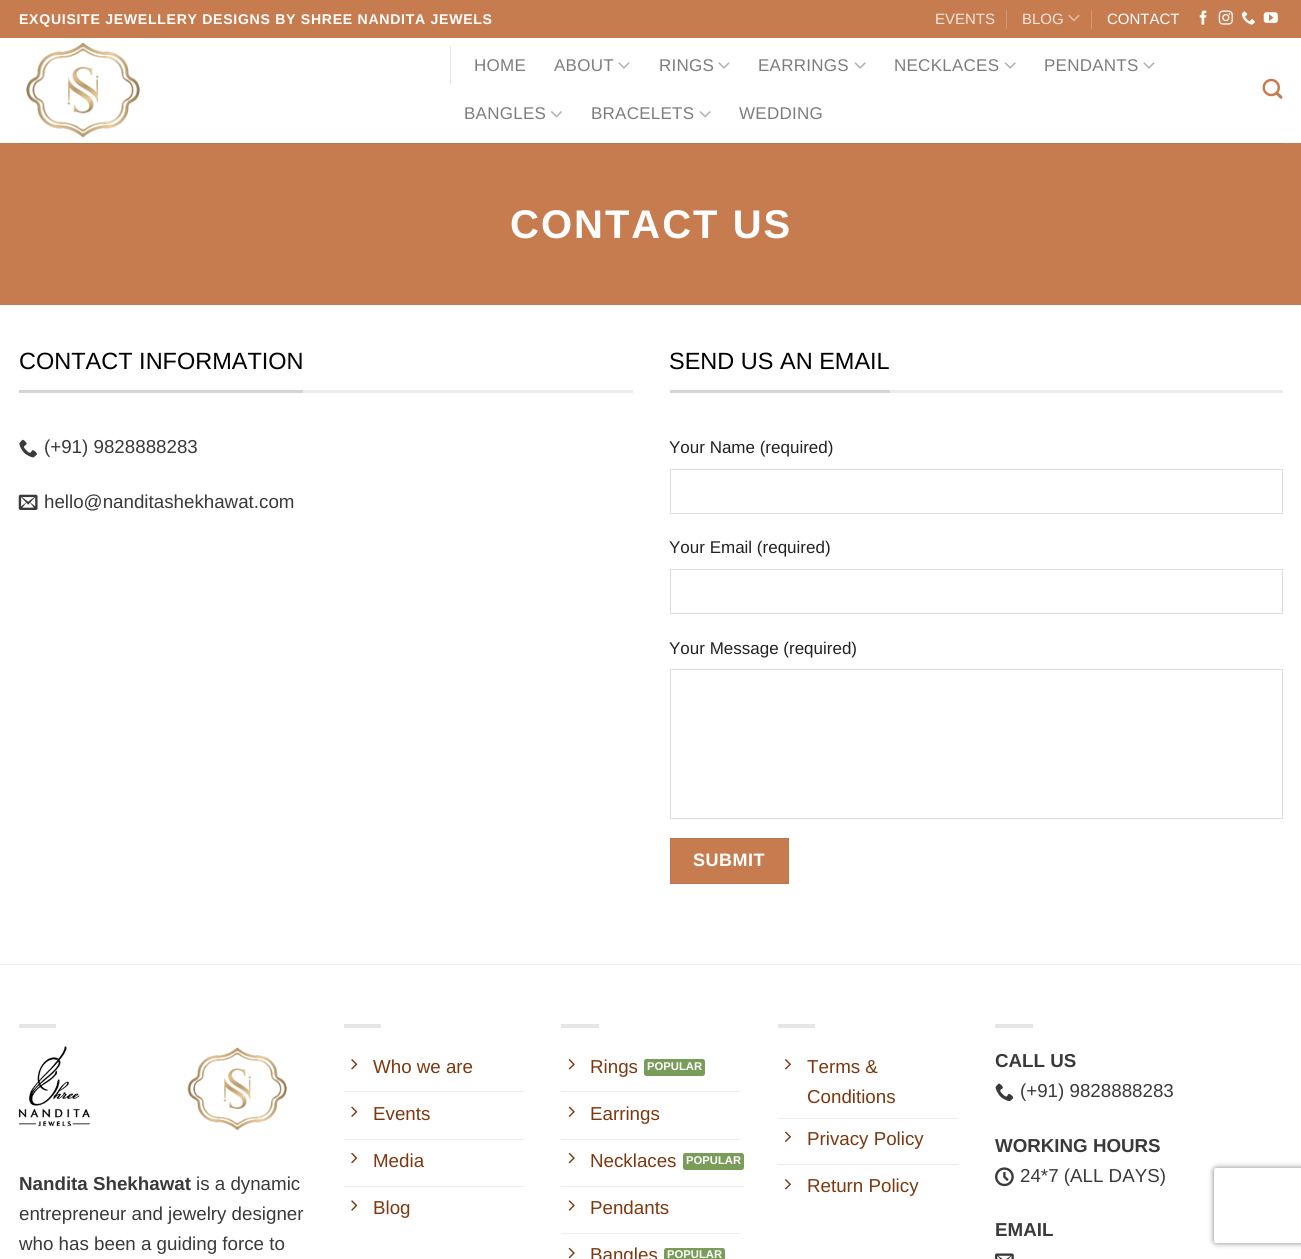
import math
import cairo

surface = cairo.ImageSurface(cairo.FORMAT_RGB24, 1301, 1259)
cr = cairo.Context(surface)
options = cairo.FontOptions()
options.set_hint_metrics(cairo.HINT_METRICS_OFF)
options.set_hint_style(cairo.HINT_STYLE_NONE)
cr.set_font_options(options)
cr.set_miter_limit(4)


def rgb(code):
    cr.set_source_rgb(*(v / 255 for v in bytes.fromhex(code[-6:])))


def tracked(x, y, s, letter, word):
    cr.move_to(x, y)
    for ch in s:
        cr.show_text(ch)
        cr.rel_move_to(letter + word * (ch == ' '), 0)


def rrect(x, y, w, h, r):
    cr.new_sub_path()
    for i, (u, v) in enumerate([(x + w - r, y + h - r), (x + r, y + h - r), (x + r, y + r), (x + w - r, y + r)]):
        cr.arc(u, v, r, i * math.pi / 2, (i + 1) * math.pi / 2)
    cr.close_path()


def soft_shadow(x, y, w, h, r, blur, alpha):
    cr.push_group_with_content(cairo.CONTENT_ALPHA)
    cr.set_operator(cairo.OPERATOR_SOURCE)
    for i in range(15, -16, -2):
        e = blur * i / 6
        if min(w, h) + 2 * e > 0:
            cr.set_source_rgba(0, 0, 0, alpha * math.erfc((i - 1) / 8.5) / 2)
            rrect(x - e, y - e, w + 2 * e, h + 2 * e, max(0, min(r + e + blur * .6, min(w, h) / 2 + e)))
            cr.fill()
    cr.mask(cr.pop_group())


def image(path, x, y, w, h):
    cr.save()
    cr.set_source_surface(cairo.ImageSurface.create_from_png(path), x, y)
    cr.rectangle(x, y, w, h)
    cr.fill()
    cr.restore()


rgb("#ffffff")
cr.paint()
rgb("#c77c50")
cr.rectangle(0, 0, 1301, 38)
cr.fill()
rgb("#d29673")
cr.rectangle(1006, 10, 1, 19)
cr.fill()
image("img/1.png", 1068, 14, 12, 8)
cr.rectangle(1091, 10, 1, 19)
cr.fill()
image("img/2.png", 1199, 10, 8, 15)
image("img/3.png", 1218, 10, 15, 15)
image("img/4.png", 1241, 11, 14, 14)
image("img/5.png", 1263, 12, 15, 11)
image("img/6.png", 26, 42, 114, 96)
rgb("#e6e6e6")
cr.rectangle(450, 46, 1, 38)
cr.fill()
image("img/7.png", 618, 62, 12, 7)
image("img/7.png", 718, 62, 12, 7)
image("img/8.png", 854, 62, 12, 7)
image("img/8.png", 1004, 62, 12, 7)
image("img/7.png", 1143, 62, 12, 7)
image("img/9.png", 551, 111, 11, 7)
image("img/10.png", 699, 111, 12, 7)
image("img/11.png", 1262, 78, 21, 21)
for x, y, w, h, color in [
    (0, 143, 1301, 162, "#c77c50"),
    (19, 143, 1264, 1, "#b9754e"),
    (303, 390, 330, 3, "#ececec"),
    (19, 390, 284, 3, "#d4d4d4"),
]:
    rgb(color)
    cr.rectangle(x, y, w, h)
    cr.fill()
image("img/12.png", 19, 439, 18, 19)
image("img/13.png", 18, 494, 20, 16)
rgb("#ececec")
cr.rectangle(890, 390, 393, 3)
cr.fill()
rgb("#d4d4d4")
cr.rectangle(670, 390, 220, 3)
cr.fill()
cr.rectangle(670.5, 469.5, 612, 44)
rgb("#dddddd")
cr.set_line_width(1)
cr.stroke()
cr.rectangle(670.5, 569.5, 612, 44)
cr.stroke()
cr.rectangle(670.5, 669.5, 612, 149)
cr.stroke()
rgb("#c77c50")
cr.rectangle(670.5, 838.5, 118, 45)
cr.fill_preserve()
rgb("#bd764c")
cr.stroke()
for x, y, w, h, color in [
    (0, 964, 1301, 1, "#ececec"),
    (344, 1024, 37, 4, "#e6e6e6"),
    (344, 1091, 180, 1, "#ececec"),
]:
    rgb(color)
    cr.rectangle(x, y, w, h)
    cr.fill()
image("img/14.png", 351, 1059, 7, 11)
cr.rectangle(344, 1139, 180, 1)
cr.fill()
image("img/15.png", 351, 1106, 7, 11)
cr.rectangle(344, 1186, 180, 1)
cr.fill()
image("img/16.png", 351, 1152, 7, 12)
image("img/17.png", 351, 1200, 7, 11)
rgb("#e6e6e6")
cr.rectangle(561, 1024, 38, 4)
cr.fill()
rgb("#ececec")
cr.rectangle(561, 1091, 179, 1)
cr.fill()
image("img/18.png", 568, 1059, 7, 11)
rgb("#7a9c59")
rrect(644, 1059, 61, 17, 2.5)
cr.fill()
rgb("#ececec")
cr.rectangle(561, 1139, 179, 1)
cr.fill()
image("img/19.png", 568, 1106, 7, 11)
cr.rectangle(561, 1186, 183, 1)
cr.fill()
image("img/20.png", 568, 1152, 7, 12)
rgb("#7a9c59")
rrect(683, 1153, 61, 17, 2.5)
cr.fill()
rgb("#ececec")
cr.rectangle(561, 1233, 179, 1)
cr.fill()
image("img/21.png", 568, 1200, 7, 11)
image("img/20.png", 568, 1247, 7, 12)
rgb("#7a9c59")
rrect(664, 1248, 61, 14, 2.5)
cr.fill()
rgb("#e6e6e6")
cr.rectangle(778, 1024, 37, 4)
cr.fill()
rgb("#ececec")
cr.rectangle(778, 1118, 180, 1)
cr.fill()
image("img/22.png", 785, 1059, 6, 11)
cr.rectangle(778, 1164, 180, 1)
cr.fill()
image("img/23.png", 785, 1131, 6, 11)
image("img/22.png", 785, 1179, 6, 11)
rgb("#e6e6e6")
cr.rectangle(995, 1024, 38, 4)
cr.fill()
image("img/24.png", 995, 1083, 19, 19)
image("img/25.png", 995, 1167, 19, 20)
image("img/26.png", 995, 1253, 19, 6)
cr.rectangle(19, 1024, 37, 4)
cr.fill()
image("img/27.png", 18, 1046, 72, 81)
image("img/28.png", 187, 1047, 100, 84)
cr.save()
cr.set_fill_rule(cairo.FILL_RULE_EVEN_ODD)
cr.new_path()
cr.move_to(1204, 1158)
cr.line_to(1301, 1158)
cr.line_to(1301, 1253)
cr.line_to(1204, 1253)
cr.close_path()
cr.move_to(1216.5, 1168)
cr.line_to(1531.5, 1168)
cr.curve_to(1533, 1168, 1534, 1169, 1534, 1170.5)
cr.line_to(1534, 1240.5)
cr.curve_to(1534, 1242, 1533, 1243, 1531.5, 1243)
cr.line_to(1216.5, 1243)
cr.curve_to(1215, 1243, 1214, 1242, 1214, 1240.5)
cr.line_to(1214, 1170.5)
cr.curve_to(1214, 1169, 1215, 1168, 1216.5, 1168)
cr.close_path()
cr.clip()
rgb("#808080")
soft_shadow(1214, 1168, 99, 75, 2.5, 3, 1)
cr.restore()
cr.select_font_face("Liberation Sans", cairo.FONT_SLANT_NORMAL, cairo.FONT_WEIGHT_BOLD)
cr.set_font_size(14.1)
rgb("#ffffff")
tracked(19, 24, "EXQUISITE JEWELLERY DESIGNS BY SHREE NANDITA JEWELS", 0.7, 0)
cr.select_font_face("Liberation Sans")
cr.set_font_size(15)
rgb("#f4e5dc")
cr.move_to(935, 24)
cr.show_text("EVENTS")
cr.move_to(1022, 24)
cr.show_text("BLOG")
rgb("#ffffff")
cr.move_to(1107, 24)
cr.show_text("CONTACT")
cr.set_font_size(17)
rgb("#7d7d7d")
for x, y, s in [
    (474, 71, "HOME"),
    (554, 71, "ABOUT"),
    (659, 71, "RINGS"),
    (758, 71, "EARRINGS"),
    (894, 71, "NECKLACES"),
    (1044, 71, "PENDANTS"),
    (464, 119, "BANGLES"),
    (591, 119, "BRACELETS"),
    (739, 119, "WEDDING"),
]:
    tracked(x, y, s, 0.25, 0)
cr.select_font_face("Liberation Sans", cairo.FONT_SLANT_NORMAL, cairo.FONT_WEIGHT_BOLD)
cr.set_font_size(40)
rgb("#ffffff")
tracked(510, 238, "CONTACT US", 2, 0)
cr.select_font_face("Liberation Sans")
cr.set_font_size(23.5)
rgb("#000000")
cr.move_to(19, 369)
cr.show_text("CONTACT INFORMATION")
cr.set_font_size(18.75)
rgb("#3a3a3a")
cr.move_to(44, 453)
cr.show_text("(+91) 9828888283")
cr.move_to(44, 508)
cr.show_text("hello@nanditashekhawat.com")
cr.set_font_size(23.5)
rgb("#000000")
cr.move_to(669, 369)
cr.show_text("SEND US AN EMAIL")
cr.set_font_size(17)
rgb("#222222")
for x, y, s in [
    (669, 453, "Your Name (required)"),
    (669, 553, "Your Email (required)"),
    (669, 654, "Your Message (required)"),
]:
    cr.move_to(x, y)
    cr.show_text(s)
cr.select_font_face("Liberation Sans", cairo.FONT_SLANT_NORMAL, cairo.FONT_WEIGHT_BOLD)
cr.set_font_size(18)
rgb("#ffffff")
tracked(693, 866, "SUBMIT", 0.5, 0)
cr.select_font_face("Liberation Sans")
cr.set_font_size(18.75)
rgb("#7e3810")
for x, y, s in [
    (373, 1073, "Who we are"),
    (373, 1120, "Events"),
    (373, 1167, "Media"),
    (373, 1214, "Blog"),
    (590, 1073, "Rings"),
]:
    cr.move_to(x, y)
    cr.show_text(s)
cr.select_font_face("Liberation Sans", cairo.FONT_SLANT_NORMAL, cairo.FONT_WEIGHT_BOLD)
cr.set_font_size(11.25)
rgb("#ffffff")
cr.move_to(647, 1070)
cr.show_text("POPULAR")
cr.select_font_face("Liberation Sans")
cr.set_font_size(18.75)
rgb("#7e3810")
cr.move_to(590, 1120)
cr.show_text("Earrings")
cr.move_to(590, 1167)
cr.show_text("Necklaces")
cr.select_font_face("Liberation Sans", cairo.FONT_SLANT_NORMAL, cairo.FONT_WEIGHT_BOLD)
cr.set_font_size(11.25)
rgb("#ffffff")
cr.move_to(686, 1164)
cr.show_text("POPULAR")
cr.select_font_face("Liberation Sans")
cr.set_font_size(18.75)
rgb("#7e3810")
cr.move_to(590, 1214)
cr.show_text("Pendants")
cr.move_to(590, 1261)
cr.show_text("Bangles")
cr.select_font_face("Liberation Sans", cairo.FONT_SLANT_NORMAL, cairo.FONT_WEIGHT_BOLD)
cr.set_font_size(11.25)
rgb("#ffffff")
cr.move_to(667, 1258)
cr.show_text("POPULAR")
cr.select_font_face("Liberation Sans")
cr.set_font_size(18.75)
rgb("#7e3810")
for x, y, s in [
    (807, 1073, "Terms &"),
    (807, 1103, "Conditions"),
    (807, 1145, "Privacy Policy"),
    (807, 1192, "Return Policy"),
]:
    cr.move_to(x, y)
    cr.show_text(s)
cr.select_font_face("Liberation Sans", cairo.FONT_SLANT_NORMAL, cairo.FONT_WEIGHT_BOLD)
rgb("#3a3a3a")
cr.move_to(995, 1067)
cr.show_text("CALL US")
cr.select_font_face("Liberation Sans")
cr.move_to(1020, 1097)
cr.show_text("(+91) 9828888283")
cr.select_font_face("Liberation Sans", cairo.FONT_SLANT_NORMAL, cairo.FONT_WEIGHT_BOLD)
cr.move_to(995, 1152)
cr.show_text("WORKING HOURS")
cr.select_font_face("Liberation Sans")
cr.move_to(1020, 1182)
cr.show_text("24*7 (ALL DAYS)")
cr.select_font_face("Liberation Sans", cairo.FONT_SLANT_NORMAL, cairo.FONT_WEIGHT_BOLD)
cr.move_to(995, 1236)
cr.show_text("EMAIL")
cr.move_to(19, 1190)
cr.show_text("Nandita Shekhawat")
cr.select_font_face("Liberation Sans")
for x, y, s in [
    (196, 1190, "is a dynamic"),
    (19, 1220, "entrepreneur and jewelry designer"),
    (19, 1250, "who has been a guiding force to"),
]:
    cr.move_to(x, y)
    cr.show_text(s)
surface.write_to_png("page.png")
